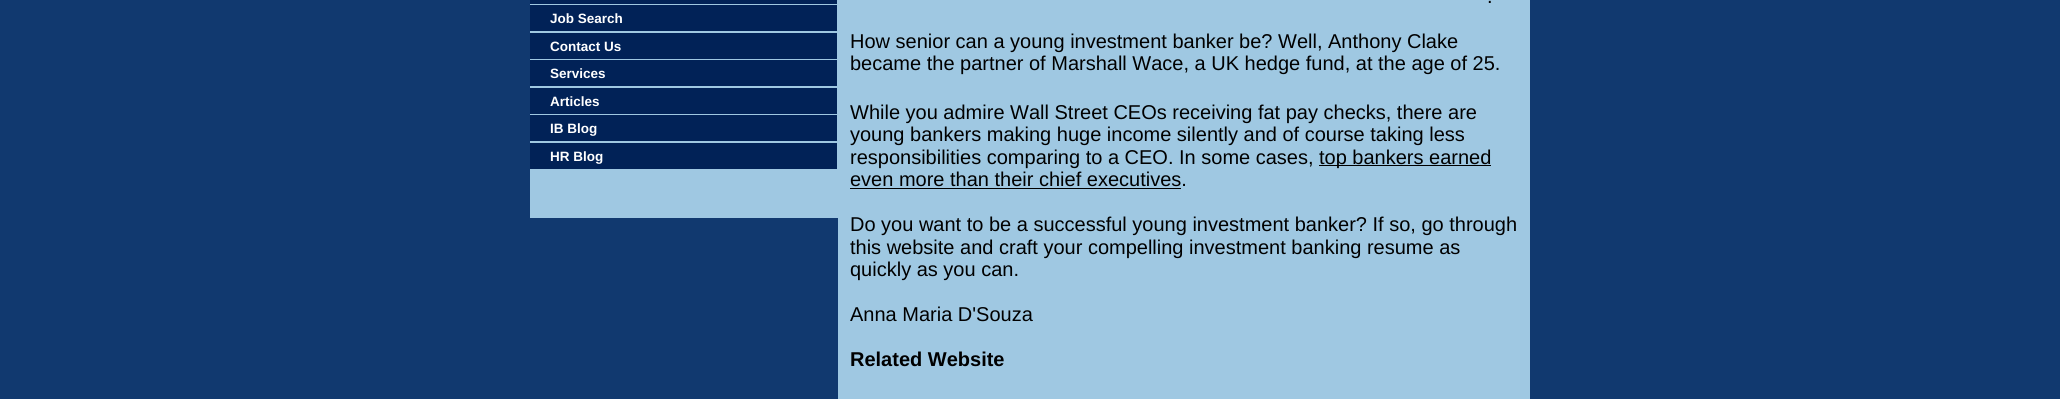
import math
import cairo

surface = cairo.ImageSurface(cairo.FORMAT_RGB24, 2060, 399)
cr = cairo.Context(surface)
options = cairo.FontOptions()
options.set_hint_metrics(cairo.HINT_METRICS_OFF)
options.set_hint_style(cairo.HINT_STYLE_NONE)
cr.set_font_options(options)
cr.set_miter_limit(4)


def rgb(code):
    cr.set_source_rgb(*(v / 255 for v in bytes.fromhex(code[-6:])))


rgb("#11396f")
cr.paint()
for x, y, w, h, color in [
    (530, 0, 308, 218, "#9fc8e2"),
    (530, 0, 307, 4, "#012257"),
    (530, 5, 307, 26, "#012257"),
    (530, 33, 307, 26, "#012257"),
    (530, 60, 307, 26, "#012257"),
    (530, 88, 307, 26, "#012257"),
    (530, 115, 307, 26, "#012257"),
    (530, 143, 307, 26, "#012257"),
    (838, 0, 692, 399, "#9fc8e2"),
    (1319, 165, 172, 1, "#000000"),
    (850, 188, 331, 1, "#000000"),
]:
    rgb(color)
    cr.rectangle(x, y, w, h)
    cr.fill()
cr.select_font_face("Liberation Sans", cairo.FONT_SLANT_NORMAL, cairo.FONT_WEIGHT_BOLD)
cr.set_font_size(13.5)
rgb("#ffffff")
for x, y, s in [
    (550, 23, "Job Search"),
    (550, 51, "Contact Us"),
    (550, 78, "Services"),
    (550, 106, "Articles"),
    (550, 133, "IB Blog"),
    (550, 161, "HR Blog"),
]:
    cr.move_to(x, y)
    cr.show_text(s)
cr.select_font_face("Liberation Sans")
cr.set_font_size(20)
rgb("#000000")
for x, y, s in [
    (1487, 3, "."),
    (850, 48, "How senior can a young investment banker be? Well, Anthony Clake"),
    (850, 70, "became the partner of Marshall Wace, a UK hedge fund, at the age of 25."),
    (850, 119, "While you admire Wall Street CEOs receiving fat pay checks, there are"),
    (850, 141, "young bankers making huge income silently and of course taking less"),
    (850, 164, "responsibilities comparing to a CEO. In some cases,"),
    (1319, 164, "top bankers earned"),
    (850, 186, "even more than their chief executives."),
    (850, 231, "Do you want to be a successful young investment banker? If so, go through"),
    (850, 254, "this website and craft your compelling investment banking resume as"),
    (850, 276, "quickly as you can."),
    (850, 321, "Anna Maria D'Souza"),
]:
    cr.move_to(x, y)
    cr.show_text(s)
cr.select_font_face("Liberation Sans", cairo.FONT_SLANT_NORMAL, cairo.FONT_WEIGHT_BOLD)
cr.move_to(850, 366)
cr.show_text("Related Website")
surface.write_to_png("page.png")
